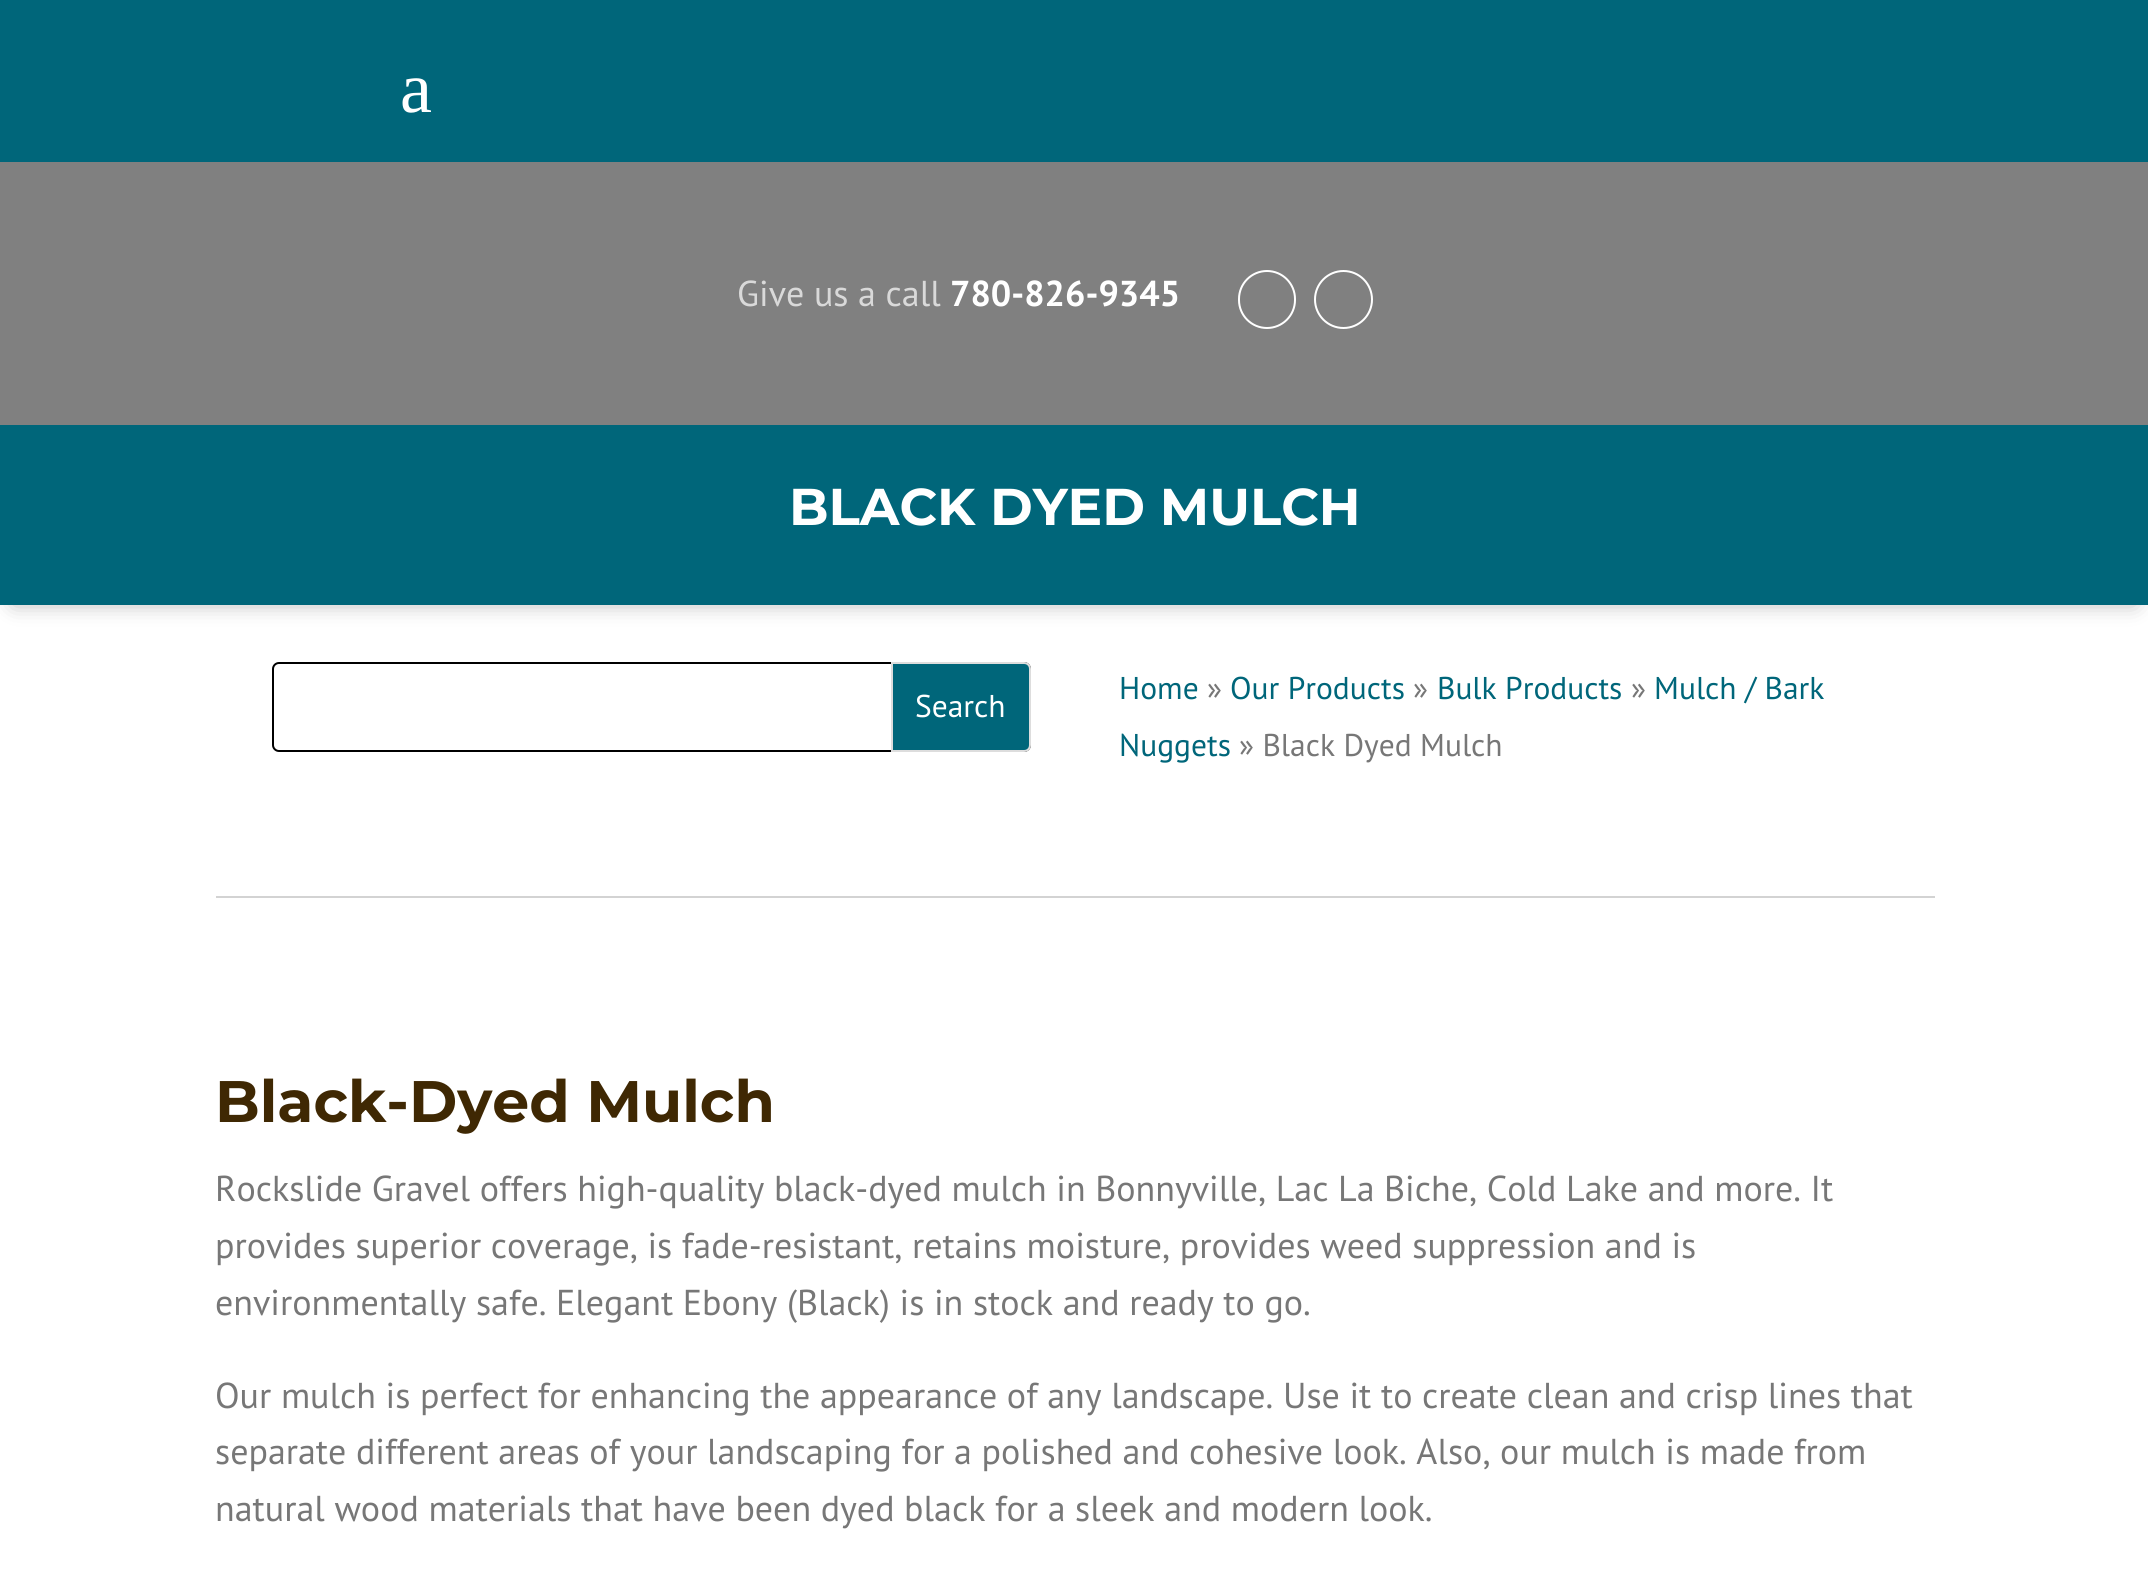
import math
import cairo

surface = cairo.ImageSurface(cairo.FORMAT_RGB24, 2148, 1578)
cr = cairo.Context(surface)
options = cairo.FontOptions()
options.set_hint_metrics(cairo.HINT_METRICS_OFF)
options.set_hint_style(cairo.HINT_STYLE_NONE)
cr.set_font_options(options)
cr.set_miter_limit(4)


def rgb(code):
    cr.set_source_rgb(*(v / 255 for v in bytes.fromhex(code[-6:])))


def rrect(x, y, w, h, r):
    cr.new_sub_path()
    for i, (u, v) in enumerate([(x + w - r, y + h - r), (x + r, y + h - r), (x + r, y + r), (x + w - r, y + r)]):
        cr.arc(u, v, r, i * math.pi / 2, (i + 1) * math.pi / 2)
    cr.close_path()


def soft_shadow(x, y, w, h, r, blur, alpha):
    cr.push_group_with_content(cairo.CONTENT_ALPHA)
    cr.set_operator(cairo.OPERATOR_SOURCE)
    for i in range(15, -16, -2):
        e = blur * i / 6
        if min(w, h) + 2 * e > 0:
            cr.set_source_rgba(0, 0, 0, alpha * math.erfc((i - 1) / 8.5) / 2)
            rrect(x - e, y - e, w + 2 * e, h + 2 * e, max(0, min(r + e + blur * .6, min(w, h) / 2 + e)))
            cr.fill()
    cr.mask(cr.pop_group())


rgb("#ffffff")
cr.paint()
rgb("#00667a")
cr.rectangle(0, 0, 2148, 162)
cr.fill()
rgb("#000000")
soft_shadow(14, 450, 2121, 153, 0, 11, 0.3)
rgb("#808080")
cr.rectangle(0, 162, 2148, 263)
cr.fill()
rrect(1239, 271, 56, 57, 28)
rgb("#ffffff")
cr.stroke()
cr.arc(1343.5, 299.5, 28.5, 0, 2 * math.pi)
cr.stroke()
rgb("#00667a")
cr.rectangle(0, 425, 2148, 180)
cr.fill()
rgb("#d3d3d3")
cr.rectangle(216, 896, 1719, 2)
cr.fill()
rrect(273, 663, 757, 88, 6)
rgb("#000000")
cr.stroke()
rgb("#00667a")
cr.new_path()
cr.move_to(892, 663)
cr.line_to(1024, 663)
cr.curve_to(1027.5, 663, 1030, 665.5, 1030, 669)
cr.line_to(1030, 745)
cr.curve_to(1030, 748.5, 1027.5, 751, 1024, 751)
cr.line_to(892, 751)
cr.close_path()
cr.fill_preserve()
rgb("#dddddd")
cr.stroke()
cr.select_font_face("Liberation Serif")
cr.set_font_size(72)
rgb("#ffffff")
cr.move_to(400, 112)
cr.show_text("a")
cr.select_font_face("PT Sans")
cr.set_font_size(36)
rgb("#d9d9d9")
cr.move_to(737, 306)
cr.show_text("Give us a call")
cr.select_font_face("PT Sans", cairo.FONT_SLANT_NORMAL, cairo.FONT_WEIGHT_BOLD)
rgb("#ffffff")
cr.move_to(950, 306)
cr.show_text("780-826-9345")
cr.select_font_face("Montserrat Thin")
cr.set_font_size(51.75)
cr.move_to(789, 525)
cr.show_text("BLACK DYED MULCH")
cr.select_font_face("PT Sans")
cr.set_font_size(31.5)
cr.move_to(915, 717)
cr.show_text("Search")
rgb("#00667a")
cr.move_to(1119, 699)
cr.show_text("Home")
rgb("#777777")
cr.move_to(1207, 699)
cr.show_text("»")
rgb("#00667a")
cr.move_to(1230, 699)
cr.show_text("Our Products")
rgb("#777777")
cr.move_to(1413, 699)
cr.show_text("»")
rgb("#00667a")
cr.move_to(1437, 699)
cr.show_text("Bulk Products")
rgb("#777777")
cr.move_to(1631, 699)
cr.show_text("»")
rgb("#00667a")
cr.move_to(1654, 699)
cr.show_text("Mulch / Bark")
cr.move_to(1119, 756)
cr.show_text("Nuggets")
rgb("#777777")
cr.move_to(1239, 756)
cr.show_text("» Black Dyed Mulch")
cr.select_font_face("Montserrat Thin")
cr.set_font_size(58.5)
rgb("#3f2803")
cr.move_to(215, 1122)
cr.show_text("Black-Dyed Mulch")
cr.select_font_face("PT Sans")
cr.set_font_size(36)
rgb("#777777")
for x, y, s in [
    (215, 1201, "Rockslide Gravel offers high-quality black-dyed mulch in Bonnyville, Lac La Biche, Cold Lake and more. It"),
    (215, 1258, "provides superior coverage, is fade-resistant, retains moisture, provides weed suppression and is"),
    (215, 1315, "environmentally safe. Elegant Ebony (Black) is in stock and ready to go."),
    (215, 1408, "Our mulch is perfect for enhancing the appearance of any landscape. Use it to create clean and crisp lines that"),
    (215, 1464, "separate different areas of your landscaping for a polished and cohesive look. Also, our mulch is made from"),
    (215, 1521, "natural wood materials that have been dyed black for a sleek and modern look."),
]:
    cr.move_to(x, y)
    cr.show_text(s)
surface.write_to_png("page.png")
